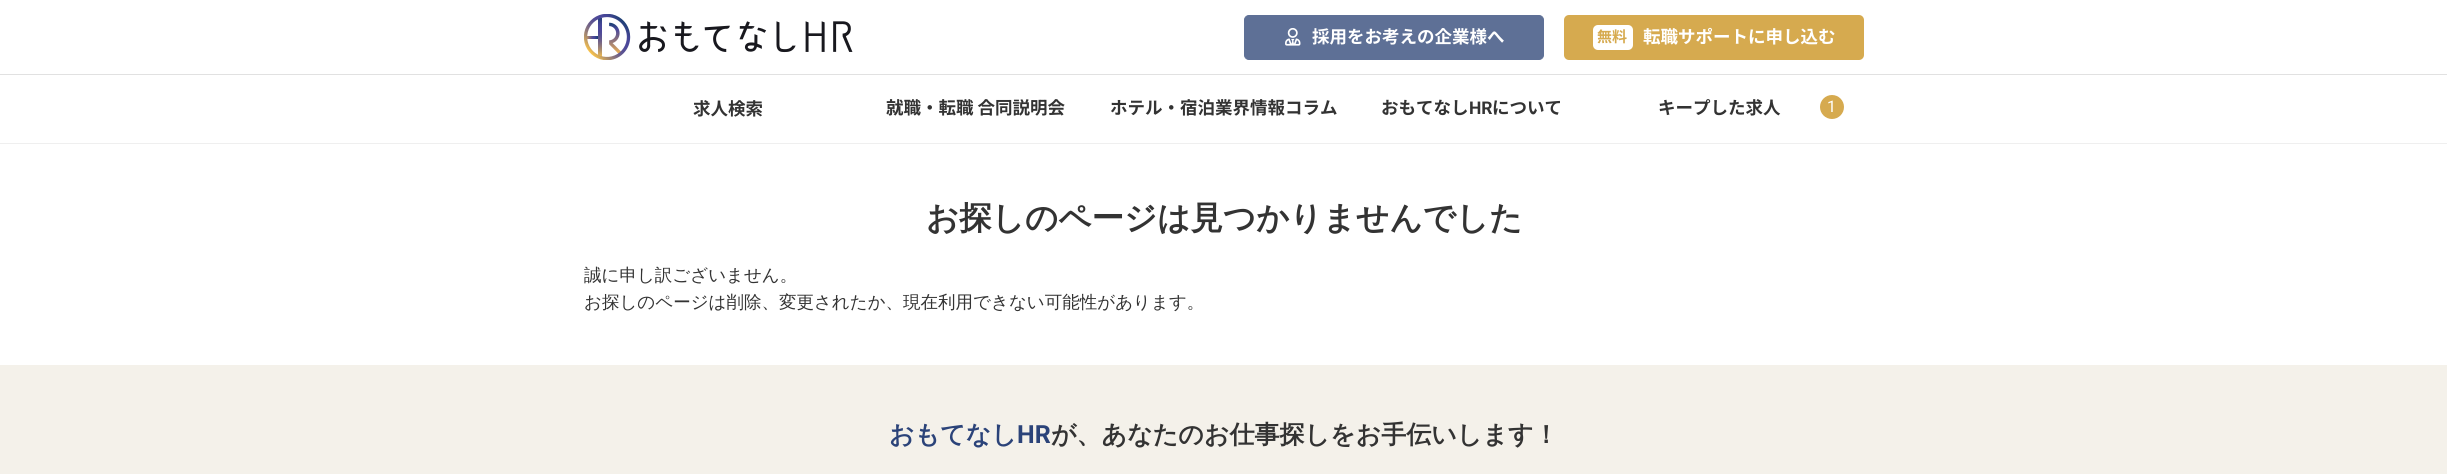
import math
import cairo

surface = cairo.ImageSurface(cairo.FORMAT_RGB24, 2447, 474)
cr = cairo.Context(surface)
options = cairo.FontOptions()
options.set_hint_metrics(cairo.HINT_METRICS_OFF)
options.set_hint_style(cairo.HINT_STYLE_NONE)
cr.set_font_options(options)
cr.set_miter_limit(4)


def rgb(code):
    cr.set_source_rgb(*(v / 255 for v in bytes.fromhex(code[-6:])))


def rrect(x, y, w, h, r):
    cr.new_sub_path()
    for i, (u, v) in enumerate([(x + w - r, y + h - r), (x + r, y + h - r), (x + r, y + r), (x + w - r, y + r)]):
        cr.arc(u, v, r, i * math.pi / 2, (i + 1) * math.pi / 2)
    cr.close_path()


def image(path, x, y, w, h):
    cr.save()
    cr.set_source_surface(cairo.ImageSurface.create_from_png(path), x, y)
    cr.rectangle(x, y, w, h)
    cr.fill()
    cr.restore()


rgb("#ffffff")
cr.paint()
rgb("#e1e1e1")
cr.rectangle(0, 74, 2447, 1)
cr.fill()
image("img/1.png", 584, 14, 269, 46)
rgb("#5e7096")
rrect(1244.5, 15.5, 299, 44, 4.5)
cr.fill_preserve()
cr.set_line_width(1)
cr.stroke()
image("img/2.png", 1285, 28, 16, 18)
rgb("#d6aa4f")
rrect(1564, 15, 300, 45, 5)
cr.fill()
rgb("#ffffff")
rrect(1593, 25, 40, 25, 5)
cr.fill()
rgb("#efefef")
cr.rectangle(0, 143, 2447, 1)
cr.fill()
rgb("#d6aa4f")
cr.arc(1832, 107, 12, 0, 2 * math.pi)
cr.fill()
rgb("#f4f1ea")
cr.rectangle(0, 365, 2447, 109)
cr.fill()
cr.select_font_face("Noto Sans JP", cairo.FONT_SLANT_NORMAL, cairo.FONT_WEIGHT_BOLD)
cr.set_font_size(17.5)
rgb("#ffffff")
cr.move_to(1312, 43)
cr.show_text("採用をお考えの企業様へ")
cr.set_font_size(15)
rgb("#d6aa4f")
cr.move_to(1597, 42)
cr.show_text("無料")
cr.set_font_size(17.5)
rgb("#ffffff")
cr.move_to(1643, 43)
cr.show_text("転職サポートに申し込む")
rgb("#333333")
for x, y, s in [
    (693, 115, "求人検索"),
    (886, 114, "就職・転職 合同説明会"),
    (1110, 114, "ホテル・宿泊業界情報コラム"),
    (1381, 114, "おもてなし"),
]:
    cr.move_to(x, y)
    cr.show_text(s)
cr.select_font_face("Roboto", cairo.FONT_SLANT_NORMAL, cairo.FONT_WEIGHT_BOLD)
cr.move_to(1469, 114)
cr.show_text("HR")
cr.select_font_face("Noto Sans JP", cairo.FONT_SLANT_NORMAL, cairo.FONT_WEIGHT_BOLD)
cr.move_to(1492, 114)
cr.show_text("について")
cr.move_to(1658, 114)
cr.show_text("キープした求人")
cr.select_font_face("Roboto")
cr.set_font_size(16)
rgb("#ffffff")
cr.move_to(1827, 112)
cr.show_text("1")
cr.select_font_face("WenQuanYi Zen Hei", cairo.FONT_SLANT_NORMAL, cairo.FONT_WEIGHT_BOLD)
cr.set_font_size(32.5)
rgb("#333333")
cr.move_to(926, 229)
cr.show_text("お探しのページは見つかりませんでした")
cr.select_font_face("WenQuanYi Zen Hei Medium")
cr.set_font_size(17.5)
cr.move_to(584, 281)
cr.show_text("誠に申し訳ございません。")
cr.move_to(584, 308)
cr.show_text("お探しのページは削除、変更されたか、現在利用できない可能性があります。")
cr.select_font_face("WenQuanYi Zen Hei", cairo.FONT_SLANT_NORMAL, cairo.FONT_WEIGHT_BOLD)
cr.set_font_size(25)
rgb("#2b4379")
cr.move_to(889, 443)
cr.show_text("おもてなし")
cr.select_font_face("Roboto", cairo.FONT_SLANT_NORMAL, cairo.FONT_WEIGHT_BOLD)
cr.move_to(1017, 443)
cr.show_text("HR")
cr.select_font_face("WenQuanYi Zen Hei", cairo.FONT_SLANT_NORMAL, cairo.FONT_WEIGHT_BOLD)
rgb("#333333")
cr.move_to(1051, 443)
cr.show_text("が、あなたのお仕事探しをお手伝いします！")
surface.write_to_png("page.png")
